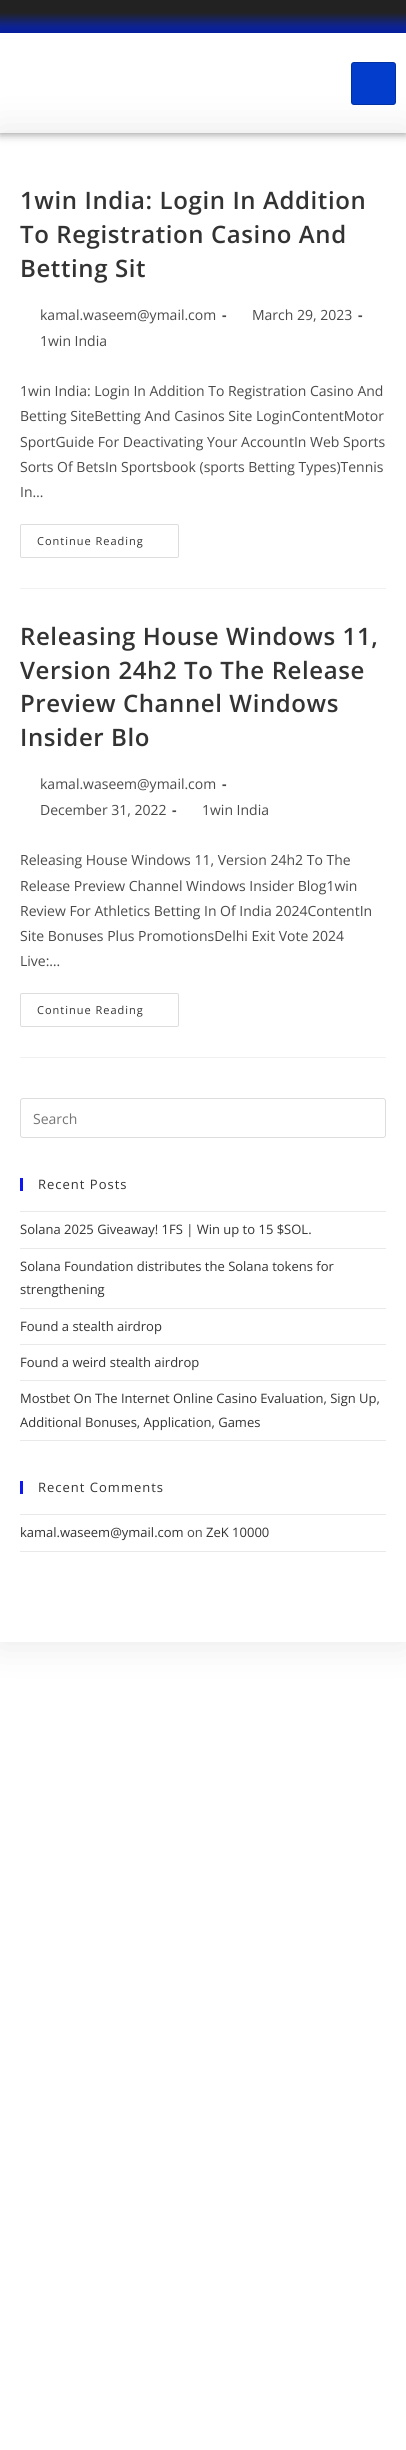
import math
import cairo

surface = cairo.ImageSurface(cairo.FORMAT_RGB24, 406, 2450)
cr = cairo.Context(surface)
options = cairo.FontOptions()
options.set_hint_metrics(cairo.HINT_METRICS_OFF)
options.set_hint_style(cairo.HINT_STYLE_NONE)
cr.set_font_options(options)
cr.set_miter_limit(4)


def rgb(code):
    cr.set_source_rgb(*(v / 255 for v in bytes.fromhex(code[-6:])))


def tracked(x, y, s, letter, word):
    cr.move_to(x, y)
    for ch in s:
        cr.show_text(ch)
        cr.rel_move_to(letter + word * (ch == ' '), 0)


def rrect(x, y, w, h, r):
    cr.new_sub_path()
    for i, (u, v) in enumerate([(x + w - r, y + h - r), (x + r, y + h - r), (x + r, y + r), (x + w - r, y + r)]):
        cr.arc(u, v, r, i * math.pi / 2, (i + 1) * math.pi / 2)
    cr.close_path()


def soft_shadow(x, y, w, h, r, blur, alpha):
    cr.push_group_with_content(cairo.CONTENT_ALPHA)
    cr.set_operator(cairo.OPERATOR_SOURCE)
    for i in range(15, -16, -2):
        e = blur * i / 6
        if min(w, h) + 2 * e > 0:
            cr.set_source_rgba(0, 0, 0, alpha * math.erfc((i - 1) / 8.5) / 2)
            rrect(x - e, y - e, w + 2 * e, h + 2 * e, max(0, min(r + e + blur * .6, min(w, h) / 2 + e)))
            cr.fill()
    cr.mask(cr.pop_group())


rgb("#ffffff")
cr.paint()
gradient = cairo.LinearGradient(203, 33, 203, 0)
gradient.add_color_stop_rgba(0, 0.02, 0.149, 0.796, 1)
gradient.add_color_stop_rgba(0.62, 0.133, 0.133, 0.133, 1)
cr.set_source(gradient)
cr.rectangle(0, 0, 406, 33)
cr.fill()
cr.save()
cr.set_fill_rule(cairo.FILL_RULE_EVEN_ODD)
cr.new_path()
cr.move_to(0, 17)
cr.line_to(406, 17)
cr.line_to(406, 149)
cr.line_to(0, 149)
cr.close_path()
cr.move_to(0, 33)
cr.line_to(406, 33)
cr.line_to(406, 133)
cr.line_to(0, 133)
cr.close_path()
cr.clip()
rgb("#000000")
soft_shadow(0, 33, 406, 100, 0, 5, 0.5)
cr.restore()
cr.save()
cr.set_fill_rule(cairo.FILL_RULE_EVEN_ODD)
cr.new_path()
cr.move_to(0, 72)
cr.line_to(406, 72)
cr.line_to(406, 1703)
cr.line_to(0, 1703)
cr.close_path()
cr.move_to(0, 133)
cr.line_to(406, 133)
cr.line_to(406, 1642)
cr.line_to(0, 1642)
cr.close_path()
cr.clip()
rgb("#000000")
soft_shadow(0, 133, 406, 1509, 0, 20, 0.1)
cr.restore()
rgb("#023dcb")
rrect(351, 62, 45, 43, 3)
cr.fill()
rrect(351.5, 62.5, 44, 42, 2.5)
cr.set_source_rgba(0, 0, 0, 0.2)
cr.set_line_width(1)
cr.stroke()
rgb("#f1f1f1")
cr.rectangle(20, 588, 366, 1)
cr.fill()
rrect(20.5, 524.5, 158, 33, 1.5)
rgb("#dddddd")
cr.stroke()
rgb("#f1f1f1")
cr.rectangle(20, 1057, 366, 1)
cr.fill()
rrect(20.5, 993.5, 158, 33, 1.5)
rgb("#dddddd")
cr.stroke()
rrect(20.5, 1098.5, 365, 39, 2.5)
cr.stroke()
for x, y, w, h, color in [
    (20, 1178, 3, 13, "#0e19f2"),
    (20, 1211, 366, 1, "#e9e9e9"),
    (20, 1248, 366, 1, "#e9e9e9"),
    (20, 1308, 366, 1, "#e9e9e9"),
    (20, 1344, 366, 1, "#e9e9e9"),
    (20, 1380, 366, 1, "#e9e9e9"),
    (20, 1440, 366, 1, "#e9e9e9"),
    (20, 1481, 3, 13, "#0e19f2"),
    (20, 1514, 366, 1, "#e9e9e9"),
    (20, 1551, 366, 1, "#e9e9e9"),
]:
    rgb(color)
    cr.rectangle(x, y, w, h)
    cr.fill()
cr.select_font_face("Open Sans SemiBold")
cr.set_font_size(24)
rgb("#333333")
for x, y, s in [
    (20, 209, "1win India: Login In Addition"),
    (20, 243, "To Registration Casino And"),
    (20, 277, "Betting Sit"),
]:
    tracked(x, y, s, 0.6, 0)
cr.select_font_face("Open Sans")
cr.set_font_size(14)
rgb("#4a4a4a")
cr.move_to(40, 320)
cr.show_text("kamal.waseem@ymail.com")
cr.select_font_face("Open Sans", cairo.FONT_SLANT_NORMAL, cairo.FONT_WEIGHT_BOLD)
cr.move_to(222, 320)
cr.show_text("-")
cr.select_font_face("Open Sans")
cr.move_to(252, 320)
cr.show_text("March 29, 2023")
cr.select_font_face("Open Sans", cairo.FONT_SLANT_NORMAL, cairo.FONT_WEIGHT_BOLD)
cr.move_to(358, 320)
cr.show_text("-")
cr.select_font_face("Open Sans")
for x, y, s in [
    (40, 346, "1win India"),
    (20, 396, "1win India: Login In Addition To Registration Casino And"),
    (20, 421, "Betting SiteBetting And Casinos Site LoginContentMotor"),
    (20, 447, "SportGuide For Deactivating Your AccountIn Web Sports"),
    (20, 472, "Sorts Of BetsIn Sportsbook (sports Betting Types)Tennis"),
    (20, 497, "In…"),
]:
    cr.move_to(x, y)
    cr.show_text(s)
cr.set_font_size(11)
rgb("#333333")
tracked(37, 545, "Continue Reading", 1, 0)
cr.select_font_face("Open Sans SemiBold")
cr.set_font_size(24)
for x, y, s in [
    (20, 645, "Releasing House Windows 11,"),
    (20, 679, "Version 24h2 To The Release"),
    (20, 712, "Preview Channel Windows"),
    (20, 746, "Insider Blo"),
]:
    tracked(x, y, s, 0.6, 0)
cr.select_font_face("Open Sans")
cr.set_font_size(14)
rgb("#4a4a4a")
cr.move_to(40, 789)
cr.show_text("kamal.waseem@ymail.com")
cr.select_font_face("Open Sans", cairo.FONT_SLANT_NORMAL, cairo.FONT_WEIGHT_BOLD)
cr.move_to(222, 789)
cr.show_text("-")
cr.select_font_face("Open Sans")
cr.move_to(40, 815)
cr.show_text("December 31, 2022")
cr.select_font_face("Open Sans", cairo.FONT_SLANT_NORMAL, cairo.FONT_WEIGHT_BOLD)
cr.move_to(172, 815)
cr.show_text("-")
cr.select_font_face("Open Sans")
for x, y, s in [
    (202, 815, "1win India"),
    (20, 865, "Releasing House Windows 11, Version 24h2 To The"),
    (20, 891, "Release Preview Channel Windows Insider Blog1win"),
    (20, 916, "Review For Athletics Betting In Of India 2024ContentIn"),
    (20, 941, "Site Bonuses Plus PromotionsDelhi Exit Vote 2024"),
    (20, 966, "Live:…"),
]:
    cr.move_to(x, y)
    cr.show_text(s)
cr.set_font_size(11)
rgb("#333333")
tracked(37, 1014, "Continue Reading", 1, 0)
cr.set_font_size(14)
rgb("#757575")
cr.move_to(33, 1124)
cr.show_text("Search")
cr.set_font_size(13)
rgb("#333333")
tracked(38, 1189, "Recent Posts", 1, 0)
for x, y, s in [
    (20, 1234, "Solana 2025 Giveaway! 1FS | Win up to 15 $SOL."),
    (20, 1271, "Solana Foundation distributes the Solana tokens for"),
    (20, 1294, "strengthening"),
    (20, 1331, "Found a stealth airdrop"),
    (20, 1367, "Found a weird stealth airdrop"),
    (20, 1403, "Mostbet On The Internet Online Casino Evaluation, Sign Up,"),
    (20, 1427, "Additional Bonuses, Application, Games"),
]:
    cr.move_to(x, y)
    cr.show_text(s)
tracked(38, 1492, "Recent Comments", 1, 0)
cr.move_to(20, 1537)
cr.show_text("kamal.waseem@ymail.com")
rgb("#4a4a4a")
cr.move_to(187, 1537)
cr.show_text("on")
rgb("#333333")
cr.move_to(206, 1537)
cr.show_text("ZeK 10000")
surface.write_to_png("page.png")
